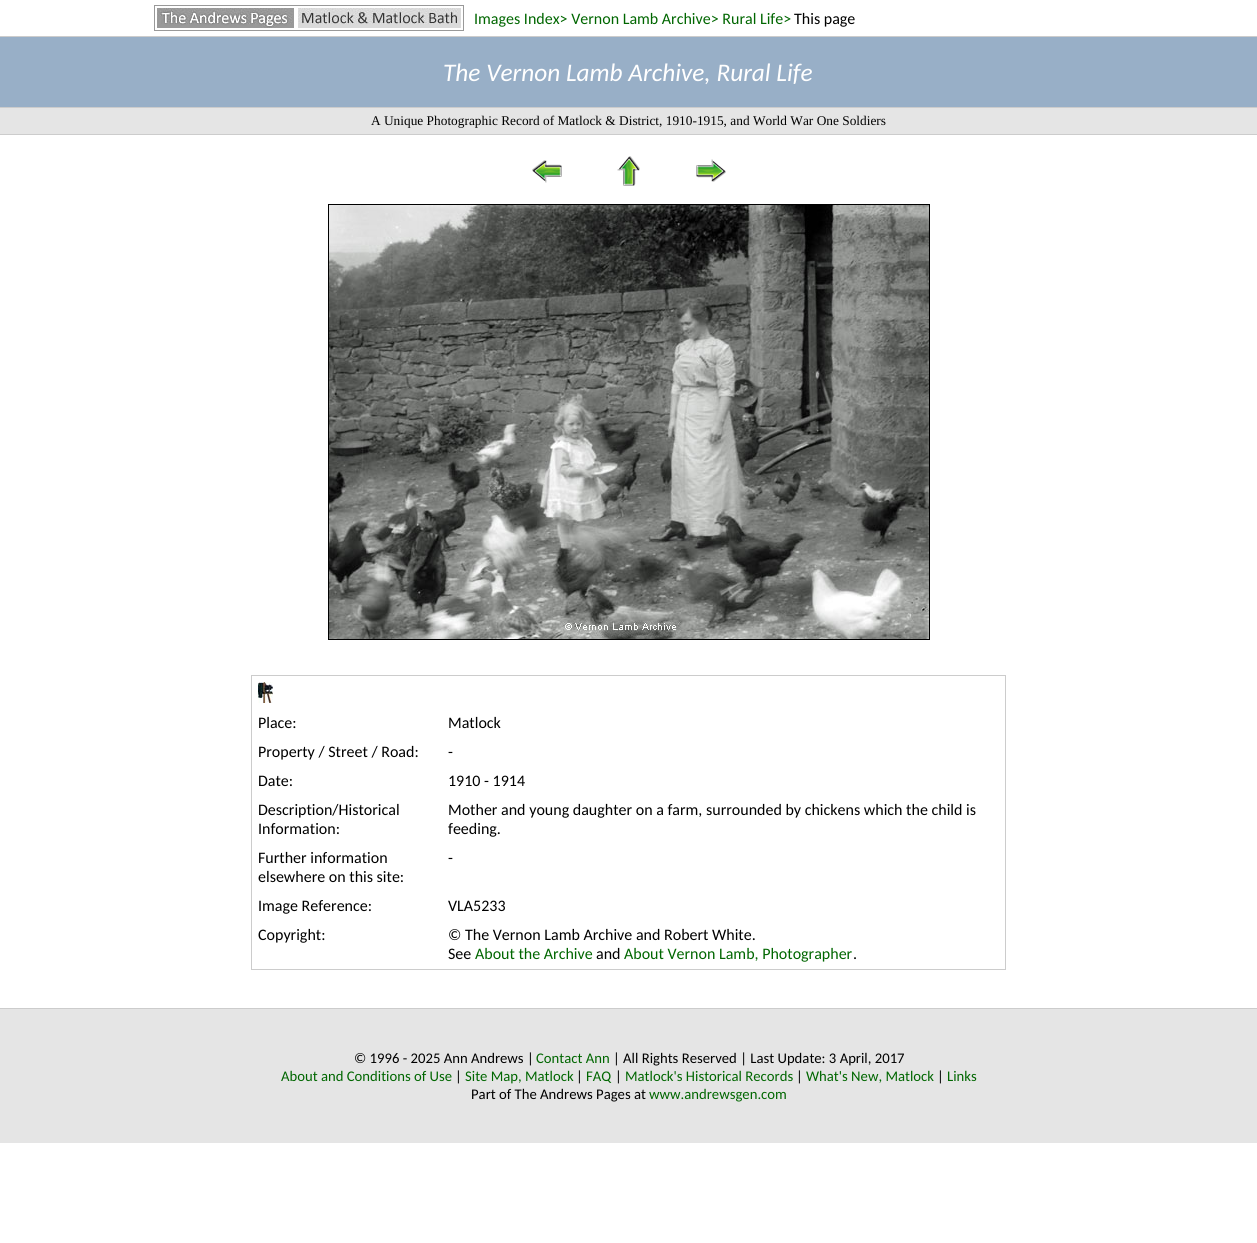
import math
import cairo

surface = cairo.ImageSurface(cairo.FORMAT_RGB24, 1257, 1243)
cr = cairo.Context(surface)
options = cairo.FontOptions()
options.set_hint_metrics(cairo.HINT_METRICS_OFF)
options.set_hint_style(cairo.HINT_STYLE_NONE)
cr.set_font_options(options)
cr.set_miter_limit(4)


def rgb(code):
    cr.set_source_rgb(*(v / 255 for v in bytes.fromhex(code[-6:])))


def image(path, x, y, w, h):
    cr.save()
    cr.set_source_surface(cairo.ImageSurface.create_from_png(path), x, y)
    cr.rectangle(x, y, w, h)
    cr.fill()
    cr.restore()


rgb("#ffffff")
cr.paint()
cr.rectangle(154.5, 5.5, 309, 25)
rgb("#999999")
cr.set_line_width(1)
cr.stroke()
image("img/1.png", 157, 8, 137, 20)
image("img/2.png", 298, 8, 163, 20)
for x, y, w, h, color in [
    (0, 37, 1257, 70, "#98afc7"),
    (0, 36, 1257, 1, "#cccccc"),
    (0, 108, 1257, 26, "#e5e5e5"),
    (0, 107, 1257, 1, "#cccccc"),
    (0, 134, 1257, 1, "#cccccc"),
]:
    rgb(color)
    cr.rectangle(x, y, w, h)
    cr.fill()
image("img/3.png", 532, 160, 30, 23)
image("img/4.png", 617, 156, 23, 30)
image("img/5.png", 696, 159, 30, 23)
cr.rectangle(328.5, 204.5, 601, 435)
rgb("#000000")
cr.stroke()
image("img/6.png", 329, 205, 600, 434)
cr.rectangle(251.5, 675.5, 754, 294)
rgb("#cccccc")
cr.stroke()
image("img/7.png", 258, 682, 15, 21)
rgb("#e5e5e5")
cr.rectangle(0, 1009, 1257, 134)
cr.fill()
rgb("#cccccc")
cr.rectangle(0, 1008, 1257, 1)
cr.fill()
cr.select_font_face("Carlito")
cr.set_font_size(16)
rgb("#006600")
cr.move_to(474, 24)
cr.show_text("Images Index> Vernon Lamb Archive> Rural Life>")
rgb("#000000")
cr.move_to(794, 24)
cr.show_text("This page")
cr.select_font_face("Carlito", cairo.FONT_SLANT_ITALIC)
cr.set_font_size(25.3)
rgb("#ffffff")
cr.move_to(443, 81)
cr.show_text("The Vernon Lamb Archive, Rural Life")
cr.select_font_face("Liberation Serif")
cr.set_font_size(13.35)
rgb("#000000")
cr.move_to(371, 125)
cr.show_text("A Unique Photographic Record of Matlock & District, 1910-1915, and World War One Soldiers")
cr.select_font_face("Carlito")
cr.set_font_size(16)
for x, y, s in [
    (258, 728, "Place:"),
    (448, 728, "Matlock"),
    (258, 757, "Property / Street / Road:"),
    (448, 757, "-"),
    (258, 786, "Date:"),
    (448, 786, "1910 - 1914"),
    (258, 815, "Description/Historical"),
    (258, 834, "Information:"),
    (448, 815, "Mother and young daughter on a farm, surrounded by chickens which the child is"),
    (448, 834, "feeding."),
    (258, 863, "Further information"),
    (258, 882, "elsewhere on this site:"),
    (448, 863, "-"),
    (258, 911, "Image Reference:"),
    (448, 911, "VLA5233"),
    (258, 940, "Copyright:"),
    (448, 940, "© The Vernon Lamb Archive and Robert White."),
    (448, 959, "See"),
]:
    cr.move_to(x, y)
    cr.show_text(s)
rgb("#006600")
cr.move_to(475, 959)
cr.show_text("About the Archive")
rgb("#000000")
cr.move_to(596, 959)
cr.show_text("and")
rgb("#006600")
cr.move_to(624, 959)
cr.show_text("About Vernon Lamb, Photographer")
rgb("#000000")
cr.move_to(853, 959)
cr.show_text(".")
cr.set_font_size(14.7)
cr.move_to(354, 1063)
cr.show_text("© 1996 - 2025 Ann Andrews |")
rgb("#006600")
cr.move_to(536, 1063)
cr.show_text("Contact Ann")
rgb("#000000")
cr.move_to(613, 1063)
cr.show_text("| All Rights Reserved | Last Update: 3 April, 2017")
rgb("#006600")
cr.move_to(281, 1081)
cr.show_text("About and Conditions of Use")
rgb("#000000")
cr.move_to(455, 1081)
cr.show_text("|")
rgb("#006600")
cr.move_to(465, 1081)
cr.show_text("Site Map, Matlock")
rgb("#000000")
cr.move_to(576, 1081)
cr.show_text("|")
rgb("#006600")
cr.move_to(586, 1081)
cr.show_text("FAQ")
rgb("#000000")
cr.move_to(615, 1081)
cr.show_text("|")
rgb("#006600")
cr.move_to(625, 1081)
cr.show_text("Matlock's Historical Records")
rgb("#000000")
cr.move_to(796, 1081)
cr.show_text("|")
rgb("#006600")
cr.move_to(806, 1081)
cr.show_text("What's New, Matlock")
rgb("#000000")
cr.move_to(937, 1081)
cr.show_text("|")
rgb("#006600")
cr.move_to(947, 1081)
cr.show_text("Links")
rgb("#000000")
cr.move_to(471, 1099)
cr.show_text("Part of The Andrews Pages at")
rgb("#006600")
cr.move_to(649, 1099)
cr.show_text("www.andrewsgen.com")
surface.write_to_png("page.png")
